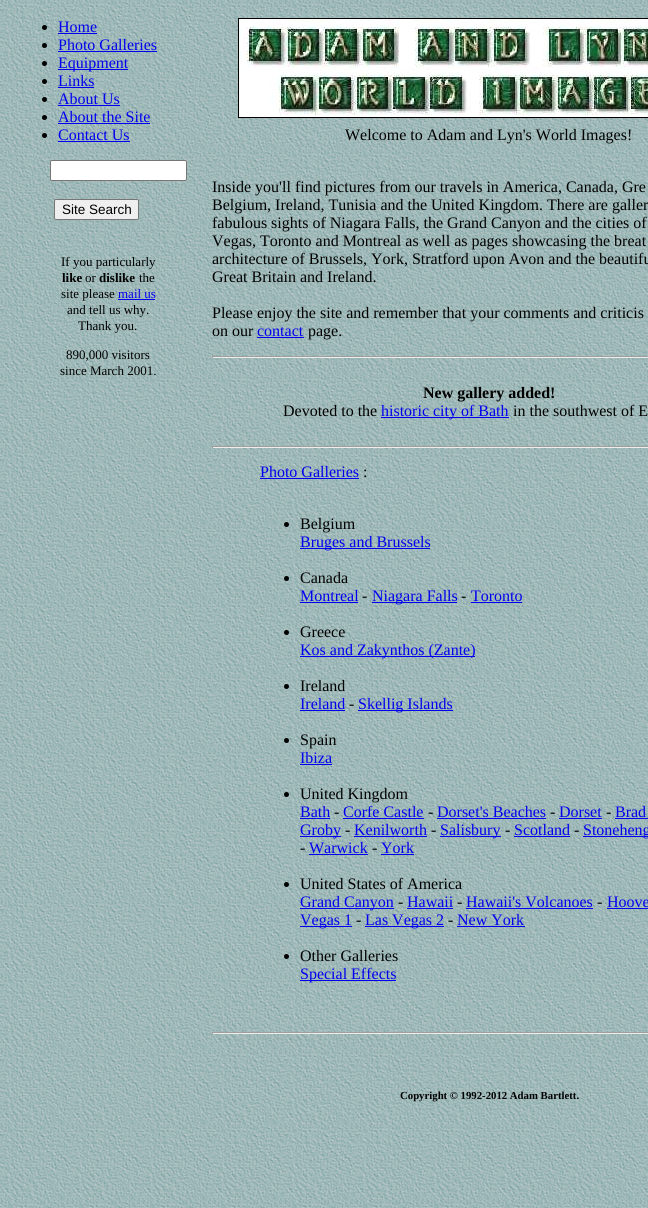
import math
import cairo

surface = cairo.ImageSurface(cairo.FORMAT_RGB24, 648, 1208)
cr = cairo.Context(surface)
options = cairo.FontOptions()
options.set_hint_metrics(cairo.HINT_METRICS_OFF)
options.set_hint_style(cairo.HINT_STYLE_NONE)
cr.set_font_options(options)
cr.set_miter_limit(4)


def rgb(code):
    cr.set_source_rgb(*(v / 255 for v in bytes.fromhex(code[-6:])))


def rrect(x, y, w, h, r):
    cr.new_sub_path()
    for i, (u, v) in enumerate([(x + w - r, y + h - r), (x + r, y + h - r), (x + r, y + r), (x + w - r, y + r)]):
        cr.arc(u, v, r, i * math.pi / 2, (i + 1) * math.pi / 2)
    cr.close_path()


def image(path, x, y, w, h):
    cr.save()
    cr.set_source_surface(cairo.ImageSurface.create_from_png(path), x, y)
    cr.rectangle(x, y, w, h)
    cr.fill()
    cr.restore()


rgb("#ffffff")
cr.paint()
image("img/1.png", 0, 0, 648, 1208)
rgb("#000000")
cr.arc(44.5, 27.5, 2.5, 0, 2 * math.pi)
cr.fill()
rgb("#0000ee")
cr.rectangle(58, 33, 39, 1)
cr.fill()
rgb("#000000")
cr.arc(44.5, 45.5, 2.5, 0, 2 * math.pi)
cr.fill()
rgb("#0000ee")
cr.rectangle(58, 51, 99, 1)
cr.fill()
rgb("#000000")
cr.arc(44.5, 63.5, 2.5, 0, 2 * math.pi)
cr.fill()
rgb("#0000ee")
cr.rectangle(58, 69, 70, 1)
cr.fill()
rgb("#000000")
cr.arc(44.5, 81.5, 2.5, 0, 2 * math.pi)
cr.fill()
rgb("#0000ee")
cr.rectangle(58, 87, 36, 1)
cr.fill()
rgb("#000000")
cr.arc(44.5, 99.5, 2.5, 0, 2 * math.pi)
cr.fill()
rgb("#0000ee")
cr.rectangle(58, 105, 62, 1)
cr.fill()
rgb("#000000")
cr.arc(44.5, 117.5, 2.5, 0, 2 * math.pi)
cr.fill()
rgb("#0000ee")
cr.rectangle(58, 123, 92, 1)
cr.fill()
rgb("#000000")
cr.arc(44.5, 135.5, 2.5, 0, 2 * math.pi)
cr.fill()
rgb("#0000ee")
cr.rectangle(58, 141, 72, 1)
cr.fill()
rgb("#ffffff")
rrect(50.5, 160.5, 136, 20, 1.5)
cr.fill_preserve()
rgb("#767676")
cr.set_line_width(1)
cr.stroke()
rgb("#efefef")
rrect(54.5, 199.5, 84, 20, 1.5)
cr.fill_preserve()
rgb("#767676")
cr.stroke()
rgb("#0000ee")
cr.rectangle(118, 299, 37, 1)
cr.fill()
cr.rectangle(238.5, 18.5, 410, 99)
rgb("#000000")
cr.stroke()
image("img/2.png", 239, 19, 409, 98)
for x, y, w, h, color in [
    (257, 337, 47, 1, "#0000ee"),
    (212, 356, 436, 1, "#9f9f9f"),
    (212, 357, 436, 1, "#eeeeee"),
    (212, 356, 1, 2, "#9f9f9f"),
    (381, 417, 128, 1, "#0000ee"),
    (212, 446, 436, 1, "#9f9f9f"),
    (212, 447, 436, 1, "#eeeeee"),
    (212, 446, 1, 2, "#9f9f9f"),
    (260, 478, 99, 1, "#0000ee"),
]:
    rgb(color)
    cr.rectangle(x, y, w, h)
    cr.fill()
rgb("#000000")
cr.arc(286.5, 524.5, 2.5, 0, 2 * math.pi)
cr.fill()
rgb("#0000ee")
cr.rectangle(300, 548, 130, 1)
cr.fill()
rgb("#000000")
cr.arc(286.5, 578.5, 2.5, 0, 2 * math.pi)
cr.fill()
for x, y, w, h, color in [
    (300, 602, 58, 1, "#0000ee"),
    (372, 602, 85, 1, "#0000ee"),
    (471, 602, 51, 1, "#0000ee"),
]:
    rgb(color)
    cr.rectangle(x, y, w, h)
    cr.fill()
rgb("#000000")
cr.arc(286.5, 632.5, 2.5, 0, 2 * math.pi)
cr.fill()
rgb("#0000ee")
cr.rectangle(300, 656, 175, 1)
cr.fill()
rgb("#000000")
cr.arc(286.5, 686.5, 2.5, 0, 2 * math.pi)
cr.fill()
rgb("#0000ee")
cr.rectangle(300, 710, 45, 1)
cr.fill()
cr.rectangle(358, 710, 95, 1)
cr.fill()
rgb("#000000")
cr.arc(286.5, 740.5, 2.5, 0, 2 * math.pi)
cr.fill()
rgb("#0000ee")
cr.rectangle(300, 764, 32, 1)
cr.fill()
rgb("#000000")
cr.arc(286.5, 794.5, 2.5, 0, 2 * math.pi)
cr.fill()
for x, y, w, h, color in [
    (300, 818, 30, 1, "#0000ee"),
    (343, 818, 81, 1, "#0000ee"),
    (437, 818, 109, 1, "#0000ee"),
    (559, 818, 43, 1, "#0000ee"),
    (615, 818, 33, 1, "#0000ee"),
    (300, 836, 41, 1, "#0000ee"),
    (354, 836, 73, 1, "#0000ee"),
    (440, 836, 61, 1, "#0000ee"),
    (514, 836, 56, 1, "#0000ee"),
    (583, 836, 65, 1, "#0000ee"),
    (309, 854, 59, 1, "#0000ee"),
    (381, 854, 33, 1, "#0000ee"),
]:
    rgb(color)
    cr.rectangle(x, y, w, h)
    cr.fill()
rgb("#000000")
cr.arc(286.5, 884.5, 2.5, 0, 2 * math.pi)
cr.fill()
for x, y, w, h, color in [
    (300, 908, 94, 1, "#0000ee"),
    (407, 908, 46, 1, "#0000ee"),
    (466, 908, 127, 1, "#0000ee"),
    (607, 908, 41, 1, "#0000ee"),
    (300, 926, 52, 1, "#0000ee"),
    (365, 926, 79, 1, "#0000ee"),
    (457, 926, 68, 1, "#0000ee"),
]:
    rgb(color)
    cr.rectangle(x, y, w, h)
    cr.fill()
rgb("#000000")
cr.arc(286.5, 956.5, 2.5, 0, 2 * math.pi)
cr.fill()
for x, y, w, h, color in [
    (300, 980, 96, 1, "#0000ee"),
    (212, 1032, 436, 1, "#9f9f9f"),
    (212, 1033, 436, 1, "#eeeeee"),
    (212, 1032, 1, 2, "#9f9f9f"),
]:
    rgb(color)
    cr.rectangle(x, y, w, h)
    cr.fill()
cr.select_font_face("Liberation Serif")
cr.set_font_size(16)
rgb("#0000ee")
for x, y, s in [
    (58, 32, "Home"),
    (58, 50, "Photo Galleries"),
    (58, 68, "Equipment"),
    (58, 86, "Links"),
    (58, 104, "About Us"),
    (58, 122, "About the Site"),
    (58, 140, "Contact Us"),
]:
    cr.move_to(x, y)
    cr.show_text(s)
cr.select_font_face("Liberation Sans")
cr.set_font_size(13.5)
rgb("#000000")
cr.move_to(62, 214)
cr.show_text("Site Search")
cr.select_font_face("Liberation Serif")
cr.set_font_size(13)
cr.move_to(61, 266)
cr.show_text("If you particularly")
cr.select_font_face("Liberation Serif", cairo.FONT_SLANT_NORMAL, cairo.FONT_WEIGHT_BOLD)
cr.move_to(62, 282)
cr.show_text("like")
cr.select_font_face("Liberation Serif")
cr.move_to(85, 282)
cr.show_text("or")
cr.select_font_face("Liberation Serif", cairo.FONT_SLANT_NORMAL, cairo.FONT_WEIGHT_BOLD)
cr.move_to(99, 282)
cr.show_text("dislike")
cr.select_font_face("Liberation Serif")
cr.move_to(139, 282)
cr.show_text("the")
cr.move_to(61, 298)
cr.show_text("site please")
rgb("#0000ee")
cr.move_to(118, 298)
cr.show_text("mail us")
rgb("#000000")
for x, y, s in [
    (67, 314, "and tell us why."),
    (78, 330, "Thank you."),
    (66, 359, "890,000 visitors"),
    (60, 375, "since March 2001."),
]:
    cr.move_to(x, y)
    cr.show_text(s)
cr.set_font_size(16)
for x, y, s in [
    (345, 140, "Welcome to Adam and Lyn's World Images!"),
    (212, 192, "Inside you'll find pictures from our travels in America, Canada, Gre"),
    (212, 210, "Belgium, Ireland, Tunisia and the United Kingdom. There are galler"),
    (212, 228, "fabulous sights of Niagara Falls, the Grand Canyon and the cities of"),
    (212, 246, "Vegas, Toronto and Montreal as well as pages showcasing the breat"),
    (212, 264, "architecture of Brussels, York, Stratford upon Avon and the beautifu"),
    (212, 282, "Great Britain and Ireland."),
    (212, 318, "Please enjoy the site and remember that your comments and criticis"),
    (212, 336, "on our"),
]:
    cr.move_to(x, y)
    cr.show_text(s)
rgb("#0000ee")
cr.move_to(257, 336)
cr.show_text("contact")
rgb("#000000")
cr.move_to(308, 336)
cr.show_text("page.")
cr.select_font_face("Liberation Serif", cairo.FONT_SLANT_NORMAL, cairo.FONT_WEIGHT_BOLD)
cr.move_to(423, 398)
cr.show_text("New gallery added!")
cr.select_font_face("Liberation Serif")
cr.move_to(283, 416)
cr.show_text("Devoted to the")
rgb("#0000ee")
cr.move_to(381, 416)
cr.show_text("historic city of Bath")
rgb("#000000")
cr.move_to(513, 416)
cr.show_text("in the southwest of E")
rgb("#0000ee")
cr.move_to(260, 477)
cr.show_text("Photo Galleries")
rgb("#000000")
cr.move_to(363, 477)
cr.show_text(":")
cr.move_to(300, 529)
cr.show_text("Belgium")
rgb("#0000ee")
cr.move_to(300, 547)
cr.show_text("Bruges and Brussels")
rgb("#000000")
cr.move_to(300, 583)
cr.show_text("Canada")
rgb("#0000ee")
cr.move_to(300, 601)
cr.show_text("Montreal")
rgb("#000000")
cr.move_to(362, 601)
cr.show_text("-")
rgb("#0000ee")
cr.move_to(372, 601)
cr.show_text("Niagara Falls")
rgb("#000000")
cr.move_to(461, 601)
cr.show_text("-")
rgb("#0000ee")
cr.move_to(471, 601)
cr.show_text("Toronto")
rgb("#000000")
cr.move_to(300, 637)
cr.show_text("Greece")
rgb("#0000ee")
cr.move_to(300, 655)
cr.show_text("Kos and Zakynthos (Zante)")
rgb("#000000")
cr.move_to(300, 691)
cr.show_text("Ireland")
rgb("#0000ee")
cr.move_to(300, 709)
cr.show_text("Ireland")
rgb("#000000")
cr.move_to(349, 709)
cr.show_text("-")
rgb("#0000ee")
cr.move_to(358, 709)
cr.show_text("Skellig Islands")
rgb("#000000")
cr.move_to(300, 745)
cr.show_text("Spain")
rgb("#0000ee")
cr.move_to(300, 763)
cr.show_text("Ibiza")
rgb("#000000")
cr.move_to(300, 799)
cr.show_text("United Kingdom")
rgb("#0000ee")
cr.move_to(300, 817)
cr.show_text("Bath")
rgb("#000000")
cr.move_to(334, 817)
cr.show_text("-")
rgb("#0000ee")
cr.move_to(343, 817)
cr.show_text("Corfe Castle")
rgb("#000000")
cr.move_to(428, 817)
cr.show_text("-")
rgb("#0000ee")
cr.move_to(437, 817)
cr.show_text("Dorset's Beaches")
rgb("#000000")
cr.move_to(550, 817)
cr.show_text("-")
rgb("#0000ee")
cr.move_to(559, 817)
cr.show_text("Dorset")
rgb("#000000")
cr.move_to(606, 817)
cr.show_text("-")
rgb("#0000ee")
cr.move_to(615, 817)
cr.show_text("Brad")
cr.move_to(300, 835)
cr.show_text("Groby")
rgb("#000000")
cr.move_to(345, 835)
cr.show_text("-")
rgb("#0000ee")
cr.move_to(354, 835)
cr.show_text("Kenilworth")
rgb("#000000")
cr.move_to(431, 835)
cr.show_text("-")
rgb("#0000ee")
cr.move_to(440, 835)
cr.show_text("Salisbury")
rgb("#000000")
cr.move_to(505, 835)
cr.show_text("-")
rgb("#0000ee")
cr.move_to(514, 835)
cr.show_text("Scotland")
rgb("#000000")
cr.move_to(574, 835)
cr.show_text("-")
rgb("#0000ee")
cr.move_to(583, 835)
cr.show_text("Stoneheng")
rgb("#000000")
cr.move_to(300, 853)
cr.show_text("-")
rgb("#0000ee")
cr.move_to(309, 853)
cr.show_text("Warwick")
rgb("#000000")
cr.move_to(372, 853)
cr.show_text("-")
rgb("#0000ee")
cr.move_to(381, 853)
cr.show_text("York")
rgb("#000000")
cr.move_to(300, 889)
cr.show_text("United States of America")
rgb("#0000ee")
cr.move_to(300, 907)
cr.show_text("Grand Canyon")
rgb("#000000")
cr.move_to(398, 907)
cr.show_text("-")
rgb("#0000ee")
cr.move_to(407, 907)
cr.show_text("Hawaii")
rgb("#000000")
cr.move_to(457, 907)
cr.show_text("-")
rgb("#0000ee")
cr.move_to(466, 907)
cr.show_text("Hawaii's Volcanoes")
rgb("#000000")
cr.move_to(597, 907)
cr.show_text("-")
rgb("#0000ee")
cr.move_to(607, 907)
cr.show_text("Hoove")
cr.move_to(300, 925)
cr.show_text("Vegas 1")
rgb("#000000")
cr.move_to(356, 925)
cr.show_text("-")
rgb("#0000ee")
cr.move_to(365, 925)
cr.show_text("Las Vegas 2")
rgb("#000000")
cr.move_to(448, 925)
cr.show_text("-")
rgb("#0000ee")
cr.move_to(457, 925)
cr.show_text("New York")
rgb("#000000")
cr.move_to(300, 961)
cr.show_text("Other Galleries")
rgb("#0000ee")
cr.move_to(300, 979)
cr.show_text("Special Effects")
cr.select_font_face("Liberation Serif", cairo.FONT_SLANT_NORMAL, cairo.FONT_WEIGHT_BOLD)
cr.set_font_size(10.75)
rgb("#000000")
cr.move_to(400, 1099)
cr.show_text("Copyright © 1992-2012 Adam Bartlett.")
surface.write_to_png("page.png")
